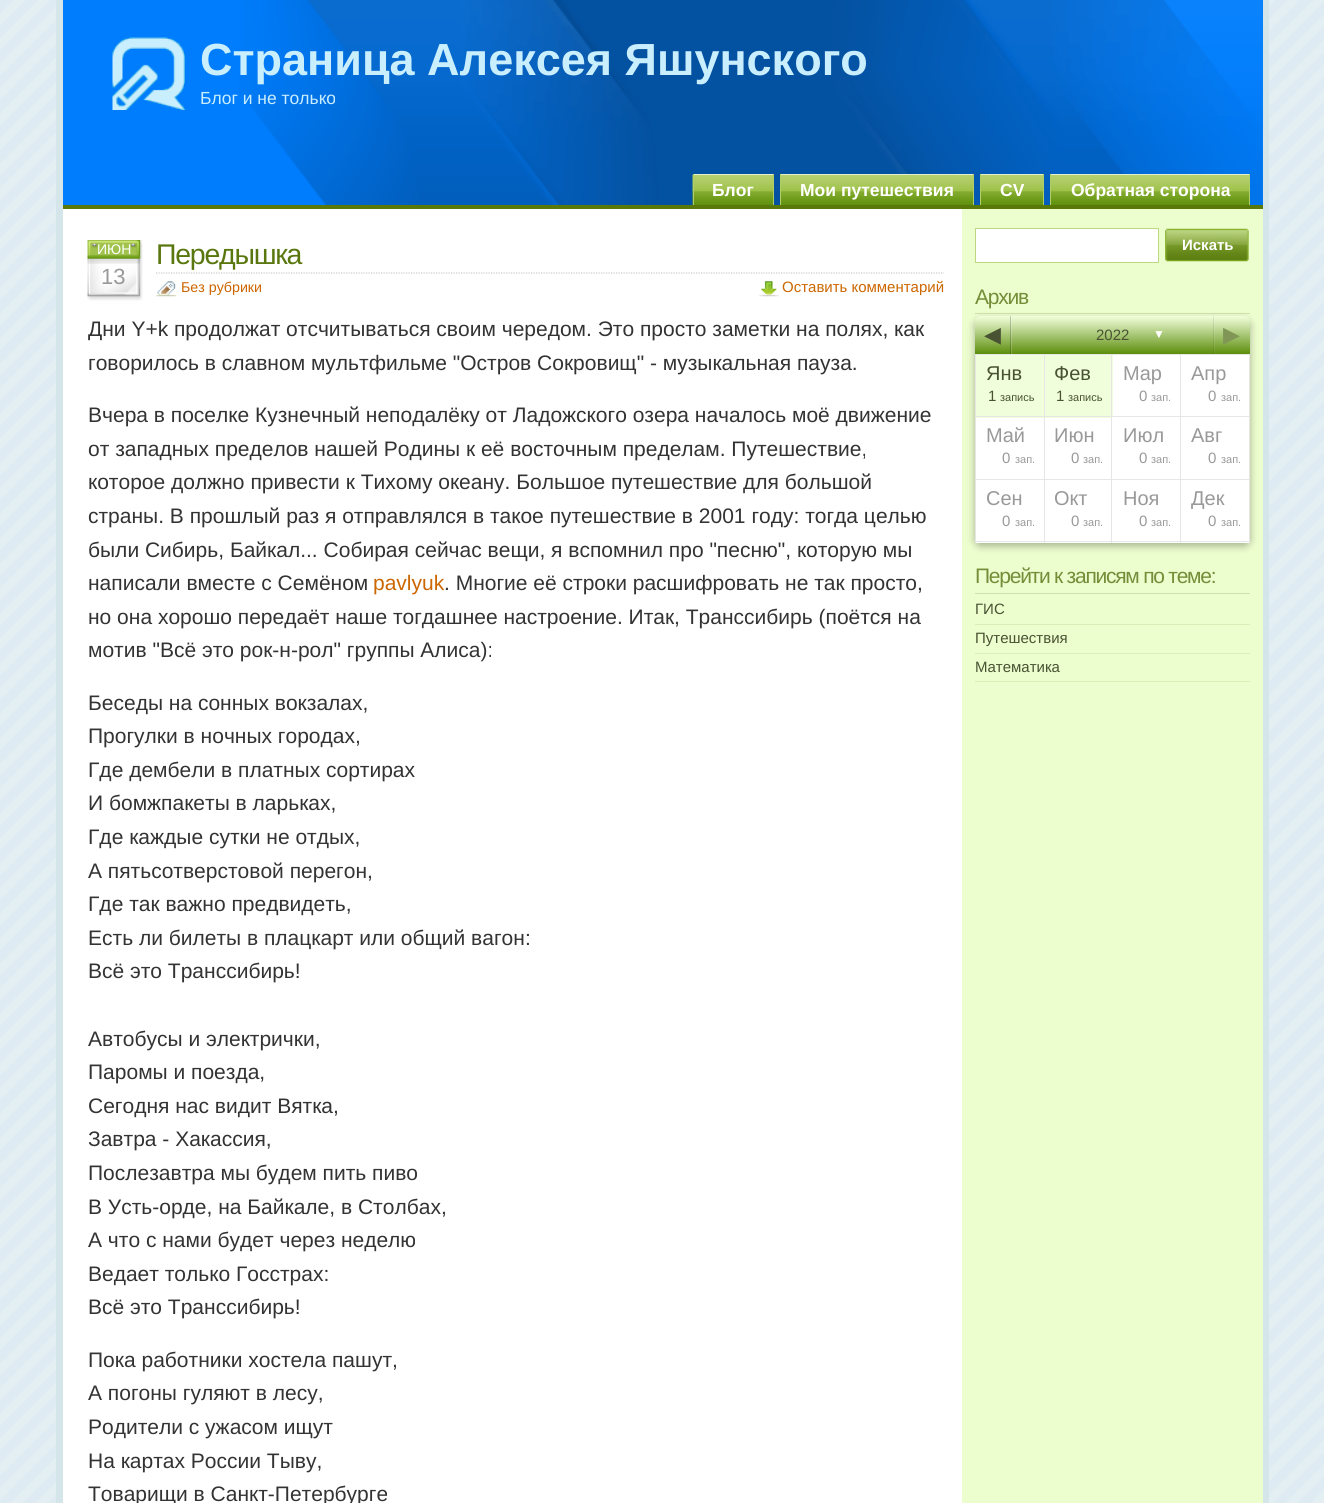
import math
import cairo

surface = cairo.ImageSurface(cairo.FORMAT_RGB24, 1324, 1503)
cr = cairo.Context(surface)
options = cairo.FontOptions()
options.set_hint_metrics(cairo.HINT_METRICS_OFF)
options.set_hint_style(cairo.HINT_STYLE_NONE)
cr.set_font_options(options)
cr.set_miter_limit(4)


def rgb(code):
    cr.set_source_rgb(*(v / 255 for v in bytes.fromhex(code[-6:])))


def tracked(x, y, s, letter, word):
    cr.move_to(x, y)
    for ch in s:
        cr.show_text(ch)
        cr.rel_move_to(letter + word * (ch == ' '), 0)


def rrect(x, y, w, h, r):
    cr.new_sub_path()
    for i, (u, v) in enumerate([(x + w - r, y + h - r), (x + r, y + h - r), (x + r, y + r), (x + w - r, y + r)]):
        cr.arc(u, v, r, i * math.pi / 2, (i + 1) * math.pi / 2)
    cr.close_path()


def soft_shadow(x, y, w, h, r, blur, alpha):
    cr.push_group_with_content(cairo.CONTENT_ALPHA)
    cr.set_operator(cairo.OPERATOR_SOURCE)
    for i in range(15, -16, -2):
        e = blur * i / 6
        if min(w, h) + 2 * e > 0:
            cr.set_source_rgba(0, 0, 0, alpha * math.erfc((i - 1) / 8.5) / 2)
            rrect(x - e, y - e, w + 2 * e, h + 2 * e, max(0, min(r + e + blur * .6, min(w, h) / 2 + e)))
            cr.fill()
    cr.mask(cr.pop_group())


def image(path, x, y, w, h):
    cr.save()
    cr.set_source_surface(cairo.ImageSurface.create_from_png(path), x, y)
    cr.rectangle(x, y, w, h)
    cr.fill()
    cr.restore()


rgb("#ffffff")
cr.paint()
image("img/1.png", 0, 0, 1324, 1503)
for x, y, w, h, color in [
    (63, 209, 899, 1294, "#ffffff"),
    (962, 209, 301, 1294, "#ecfdce"),
    (1263, 0, 6, 1503, "#d5e6eb"),
    (56, 0, 7, 1503, "#d5e6eb"),
    (63, 0, 1200, 205, "#007dfc"),
]:
    rgb(color)
    cr.rectangle(x, y, w, h)
    cr.fill()
image("img/2.png", 239, 0, 1024, 205)
rgb("#59780a")
cr.rectangle(63, 205, 1200, 4)
cr.fill()
image("img/3.png", 112, 37, 73, 73)
image("img/4.png", 692, 175, 81, 30)
for x, y, w, h, color in [
    (693, 174, 81, 1, "#e6eed0"),
    (773, 174, 1, 31, "#afcd69"),
    (693, 174, 1, 31, "#afcd69"),
]:
    rgb(color)
    cr.rectangle(x, y, w, h)
    cr.fill()
image("img/5.png", 781, 175, 192, 30)
for x, y, w, h, color in [
    (780, 174, 194, 1, "#e6eed0"),
    (973, 174, 1, 31, "#afcd69"),
    (780, 174, 1, 31, "#afcd69"),
]:
    rgb(color)
    cr.rectangle(x, y, w, h)
    cr.fill()
image("img/6.png", 981, 175, 62, 30)
for x, y, w, h, color in [
    (980, 174, 64, 1, "#e6eed0"),
    (1043, 174, 1, 31, "#afcd69"),
    (980, 174, 1, 31, "#afcd69"),
]:
    rgb(color)
    cr.rectangle(x, y, w, h)
    cr.fill()
image("img/7.png", 1051, 175, 198, 30)
for x, y, w, h, color in [
    (1050, 174, 200, 1, "#e6eed0"),
    (1249, 174, 1, 31, "#afcd69"),
    (1050, 174, 1, 31, "#afcd69"),
]:
    rgb(color)
    cr.rectangle(x, y, w, h)
    cr.fill()
image("img/8.png", 87, 240, 56, 61)
cr.new_path()
cr.move_to(156, 273)
cr.line_to(944, 273)
rgb("#cccccc")
cr.set_line_width(1.2)
cr.set_dash([1.25, 1.25])
cr.stroke()
image("img/9.png", 156, 281, 21, 16)
image("img/10.png", 759, 281, 20, 16)
rgb("#ffffff")
cr.rectangle(975.5, 228.5, 183, 34)
cr.fill_preserve()
rgb("#bed881")
cr.set_line_width(1)
cr.set_dash([])
cr.stroke()
image("img/11.png", 1165, 228, 84, 34)
rgb("#cfe1ac")
cr.rectangle(975, 313, 275, 1)
cr.fill()
rgb("#000000")
soft_shadow(975, 320, 275, 226, 6, 4, 0.3)
gradient = cairo.LinearGradient(1113, 316, 1113, 354)
gradient.add_color_stop_rgba(0.01, 0.945, 0.996, 0.859, 1)
gradient.add_color_stop_rgba(1, 0.361, 0.553, 0.047, 1)
cr.set_source(gradient)
cr.new_path()
cr.move_to(981, 316)
cr.line_to(1244, 316)
cr.curve_to(1247.5, 316, 1250, 318.5, 1250, 322)
cr.line_to(1250, 354)
cr.line_to(975, 354)
cr.line_to(975, 322)
cr.curve_to(975, 318.5, 977.5, 316, 981, 316)
cr.close_path()
cr.fill()
cr.set_source_rgba(0, 0, 0, 0.2)
cr.rectangle(1010, 316, 1, 38)
cr.fill()
cr.set_source_rgba(1, 1, 1, 0.2)
cr.rectangle(1011, 316, 1, 38)
cr.fill()
cr.set_source_rgba(1, 1, 1, 0.08)
cr.rectangle(1214, 316, 1, 38)
cr.fill()
cr.set_source_rgba(0, 0, 0, 0.08)
cr.rectangle(1213, 316, 1, 38)
cr.fill()
rgb("#e6e6e6")
cr.rectangle(975, 354, 275, 1)
cr.rectangle(1249, 354, 1, 189)
cr.rectangle(975, 354, 1, 189)
cr.fill()
rgb("#ffffff")
cr.rectangle(976, 355, 273, 188)
cr.fill()
rgb("#f1fedb")
cr.rectangle(976, 355, 68, 63)
cr.fill()
rgb("#e6e6e6")
cr.rectangle(1044, 355, 1, 188)
cr.rectangle(976, 416, 69, 1)
cr.fill()
rgb("#f1fedb")
cr.rectangle(1045, 355, 68, 63)
cr.fill()
rgb("#e6e6e6")
cr.rectangle(1111, 355, 1, 188)
cr.rectangle(1045, 416, 68, 1)
cr.rectangle(1180, 355, 1, 188)
cr.rectangle(1113, 416, 136, 1)
cr.rectangle(976, 479, 273, 1)
cr.rectangle(976, 541, 273, 1)
cr.fill()
rgb("#cfe1ac")
cr.rectangle(975, 593, 275, 1)
cr.fill()
rgb("#dceeb7")
cr.rectangle(975, 624, 275, 1)
cr.rectangle(975, 653, 275, 1)
cr.rectangle(975, 681, 275, 1)
cr.fill()
cr.select_font_face("Liberation Sans", cairo.FONT_SLANT_NORMAL, cairo.FONT_WEIGHT_BOLD)
cr.set_font_size(45)
rgb("#c9eefe")
cr.move_to(200, 75)
cr.show_text("Страница Алексея Яшунского")
cr.select_font_face("Liberation Sans")
cr.set_font_size(17.5)
cr.move_to(200, 104)
cr.show_text("Блог и не только")
cr.select_font_face("Liberation Sans", cairo.FONT_SLANT_NORMAL, cairo.FONT_WEIGHT_BOLD)
rgb("#ffffff")
for x, y, s in [
    (712, 196, "Блог"),
    (800, 196, "Мои путешествия"),
    (1000, 196, "CV"),
    (1071, 196, "Обратная сторона"),
]:
    cr.move_to(x, y)
    cr.show_text(s)
cr.select_font_face("Liberation Sans")
cr.set_font_size(14)
cr.move_to(97, 254)
cr.show_text("ИЮН")
cr.set_font_size(22)
rgb("#999999")
cr.move_to(101, 284)
cr.show_text("13")
cr.set_font_size(28.5)
rgb("#59770e")
tracked(156, 264, "Передышка", -1.25, 0)
cr.set_font_size(14.25)
rgb("#cc6600")
cr.move_to(181, 292)
cr.show_text("Без рубрики")
cr.set_font_size(15)
cr.move_to(782, 292)
cr.show_text("Оставить комментарий")
cr.set_font_size(21)
rgb("#333333")
for x, y, s in [
    (88, 336, "Дни Y+k продолжат отсчитываться своим чередом. Это просто заметки на полях, как"),
    (88, 370, "говорилось в славном мультфильме \"Остров Сокровищ\" - музыкальная пауза."),
    (88, 422, "Вчера в поселке Кузнечный неподалёку от Ладожского озера началось моё движение"),
    (88, 456, "от западных пределов нашей Родины к её восточным пределам. Путешествие,"),
    (88, 489, "которое должно привести к Тихому океану. Большое путешествие для большой"),
    (88, 523, "страны. В прошлый раз я отправлялся в такое путешествие в 2001 году: тогда целью"),
    (88, 557, "были Сибирь, Байкал... Собирая сейчас вещи, я вспомнил про \"песню\", которую мы"),
    (88, 590, "написали вместе с Семёном"),
]:
    cr.move_to(x, y)
    cr.show_text(s)
rgb("#cc6600")
cr.move_to(373, 590)
cr.show_text("pavlyuk")
rgb("#333333")
for x, y, s in [
    (444, 590, ". Многие её строки расшифровать не так просто,"),
    (88, 624, "но она хорошо передаёт наше тогдашнее настроение. Итак, Транссибирь (поётся на"),
    (88, 657, "мотив \"Всё это рок-н-рол\" группы Алиса):"),
    (88, 710, "Беседы на сонных вокзалах,"),
    (88, 743, "Прогулки в ночных городах,"),
    (88, 777, "Где дембели в платных сортирах"),
    (88, 810, "И бомжпакеты в ларьках,"),
    (88, 844, "Где каждые сутки не отдых,"),
    (88, 878, "А пятьсотверстовой перегон,"),
    (88, 911, "Где так важно предвидеть,"),
    (88, 945, "Есть ли билеты в плацкарт или общий вагон:"),
    (88, 978, "Всё это Транссибирь!"),
    (88, 1046, "Автобусы и электрички,"),
    (88, 1079, "Паромы и поезда,"),
    (88, 1113, "Сегодня нас видит Вятка,"),
    (88, 1146, "Завтра - Хакассия,"),
    (88, 1180, "Послезавтра мы будем пить пиво"),
    (88, 1214, "В Усть-орде, на Байкале, в Столбах,"),
    (88, 1247, "А что с нами будет через неделю"),
    (88, 1281, "Ведает только Госстрах:"),
    (88, 1314, "Всё это Транссибирь!"),
    (88, 1367, "Пока работники хостела пашут,"),
    (88, 1400, "А погоны гуляют в лесу,"),
    (88, 1434, "Родители с ужасом ищут"),
    (88, 1468, "На картах России Тыву,"),
    (88, 1501, "Товарищи в Санкт-Петербурге"),
]:
    cr.move_to(x, y)
    cr.show_text(s)
cr.select_font_face("Liberation Sans", cairo.FONT_SLANT_NORMAL, cairo.FONT_WEIGHT_BOLD)
cr.set_font_size(15)
rgb("#ffffff")
cr.move_to(1182, 250)
cr.show_text("Искать")
cr.select_font_face("Liberation Sans")
cr.set_font_size(21)
rgb("#758d38")
tracked(975, 304, "Архив", -1.25, 0)
cr.select_font_face("DejaVu Sans")
cr.set_font_size(22)
rgb("#495233")
cr.move_to(984, 342)
cr.show_text("◀")
cr.select_font_face("Liberation Sans")
cr.set_font_size(15)
cr.move_to(1096, 340)
cr.show_text("2022")
cr.set_font_size(12)
rgb("#ffffff")
cr.move_to(1153, 338)
cr.show_text("▼")
cr.select_font_face("DejaVu Sans")
cr.set_font_size(22)
rgb("#7f9656")
cr.move_to(1223, 342)
cr.show_text("▶")
cr.select_font_face("Liberation Sans")
cr.set_font_size(20)
rgb("#495233")
cr.move_to(986, 380)
cr.show_text("Янв")
cr.set_font_size(15)
cr.move_to(988, 401)
cr.show_text("1")
cr.set_font_size(11)
cr.move_to(1000, 401)
cr.show_text("запись")
cr.set_font_size(20)
cr.move_to(1054, 380)
cr.show_text("Фев")
cr.set_font_size(15)
cr.move_to(1056, 401)
cr.show_text("1")
cr.set_font_size(11)
cr.move_to(1068, 401)
cr.show_text("запись")
cr.set_font_size(20)
rgb("#999999")
cr.move_to(1123, 380)
cr.show_text("Мар")
cr.set_font_size(15)
cr.move_to(1139, 401)
cr.show_text("0")
cr.set_font_size(11)
cr.move_to(1151, 401)
cr.show_text("зап.")
cr.set_font_size(20)
cr.move_to(1191, 380)
cr.show_text("Апр")
cr.set_font_size(15)
cr.move_to(1208, 401)
cr.show_text("0")
cr.set_font_size(11)
cr.move_to(1221, 401)
cr.show_text("зап.")
cr.set_font_size(20)
cr.move_to(986, 442)
cr.show_text("Май")
cr.set_font_size(15)
cr.move_to(1002, 463)
cr.show_text("0")
cr.set_font_size(11)
cr.move_to(1015, 463)
cr.show_text("зап.")
cr.set_font_size(20)
cr.move_to(1054, 442)
cr.show_text("Июн")
cr.set_font_size(15)
cr.move_to(1071, 463)
cr.show_text("0")
cr.set_font_size(11)
cr.move_to(1083, 463)
cr.show_text("зап.")
cr.set_font_size(20)
cr.move_to(1123, 442)
cr.show_text("Июл")
cr.set_font_size(15)
cr.move_to(1139, 463)
cr.show_text("0")
cr.set_font_size(11)
cr.move_to(1151, 463)
cr.show_text("зап.")
cr.set_font_size(20)
cr.move_to(1191, 442)
cr.show_text("Авг")
cr.set_font_size(15)
cr.move_to(1208, 463)
cr.show_text("0")
cr.set_font_size(11)
cr.move_to(1221, 463)
cr.show_text("зап.")
cr.set_font_size(20)
cr.move_to(986, 505)
cr.show_text("Сен")
cr.set_font_size(15)
cr.move_to(1002, 526)
cr.show_text("0")
cr.set_font_size(11)
cr.move_to(1015, 526)
cr.show_text("зап.")
cr.set_font_size(20)
cr.move_to(1054, 505)
cr.show_text("Окт")
cr.set_font_size(15)
cr.move_to(1071, 526)
cr.show_text("0")
cr.set_font_size(11)
cr.move_to(1083, 526)
cr.show_text("зап.")
cr.set_font_size(20)
cr.move_to(1123, 505)
cr.show_text("Ноя")
cr.set_font_size(15)
cr.move_to(1139, 526)
cr.show_text("0")
cr.set_font_size(11)
cr.move_to(1151, 526)
cr.show_text("зап.")
cr.set_font_size(20)
cr.move_to(1191, 505)
cr.show_text("Дек")
cr.set_font_size(15)
cr.move_to(1208, 526)
cr.show_text("0")
cr.set_font_size(11)
cr.move_to(1221, 526)
cr.show_text("зап.")
cr.set_font_size(21)
rgb("#758d38")
tracked(975, 583, "Перейти к записям по теме:", -1.25, 0)
cr.set_font_size(15)
rgb("#495233")
for x, y, s in [
    (975, 614, "ГИС"),
    (975, 643, "Путешествия"),
    (975, 672, "Математика"),
]:
    cr.move_to(x, y)
    cr.show_text(s)
surface.write_to_png("page.png")
